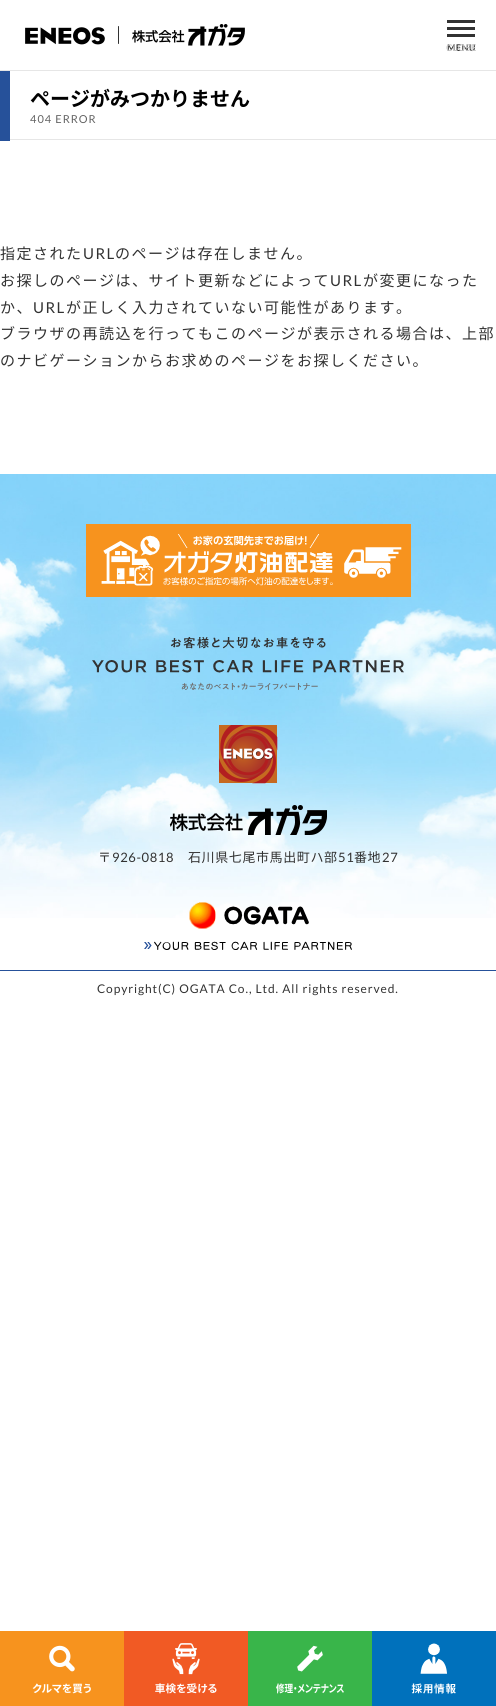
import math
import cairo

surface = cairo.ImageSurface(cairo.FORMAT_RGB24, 496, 1706)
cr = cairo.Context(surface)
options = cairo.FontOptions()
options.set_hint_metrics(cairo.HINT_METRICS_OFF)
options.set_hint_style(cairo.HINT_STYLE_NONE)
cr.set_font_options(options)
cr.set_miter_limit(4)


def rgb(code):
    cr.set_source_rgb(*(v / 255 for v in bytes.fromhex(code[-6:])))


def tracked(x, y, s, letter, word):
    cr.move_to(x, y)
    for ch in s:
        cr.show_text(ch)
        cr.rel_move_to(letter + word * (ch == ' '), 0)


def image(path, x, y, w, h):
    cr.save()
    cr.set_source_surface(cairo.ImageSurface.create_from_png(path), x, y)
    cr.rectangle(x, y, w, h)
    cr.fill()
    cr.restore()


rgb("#ffffff")
cr.paint()
image("img/1.png", 25, 24, 220, 22)
for x, y, w, h, color in [
    (447, 20, 28, 3, "#323232"),
    (447, 27, 28, 3, "#323232"),
    (447, 34, 28, 3, "#323232"),
    (0, 70, 496, 1, "#e6e6e6"),
    (10, 139, 486, 1, "#e6e6e6"),
    (0, 71, 10, 70, "#26519a"),
]:
    rgb(color)
    cr.rectangle(x, y, w, h)
    cr.fill()
image("img/2.png", 0, 474, 496, 444)
image("img/3.png", 86, 524, 325, 73)
image("img/4.png", 92, 637, 312, 53)
image("img/5.png", 219, 725, 59, 59)
image("img/6.png", 169, 805, 158, 30)
image("img/7.png", 144, 902, 208, 48)
cr.rectangle(0, 970, 496, 1)
cr.fill()
rgb("#f7931e")
cr.rectangle(0, 1631, 124, 75)
cr.fill()
image("img/8.png", 32, 1645, 59, 49)
rgb("#f15a24")
cr.rectangle(124, 1631, 124, 75)
cr.fill()
image("img/9.png", 155, 1643, 62, 51)
rgb("#39b54a")
cr.rectangle(248, 1631, 124, 75)
cr.fill()
image("img/10.png", 276, 1645, 68, 49)
rgb("#0071bc")
cr.rectangle(372, 1631, 124, 75)
cr.fill()
image("img/11.png", 411, 1643, 45, 51)
cr.select_font_face("Lato", cairo.FONT_SLANT_NORMAL, cairo.FONT_WEIGHT_BOLD)
cr.set_font_size(9)
rgb("#323232")
tracked(447, 51, "MENU", 0.5, 0)
rgb("#c7c7c7")
tracked(446, 51, "CLOSE", 0.5, 0)
cr.select_font_face("Noto Sans JP", cairo.FONT_SLANT_NORMAL, cairo.FONT_WEIGHT_BOLD)
cr.set_font_size(20)
rgb("#000000")
cr.move_to(30, 106)
cr.show_text("ページがみつかりません")
cr.select_font_face("Lato")
cr.set_font_size(11)
rgb("#646464")
tracked(30, 123, "404 ERROR", 1, 0)
cr.select_font_face("Noto Sans JP")
cr.set_font_size(15)
rgb("#323232")
tracked(0, 259, "指定された", 1.5, 0)
cr.select_font_face("Lato")
tracked(83, 259, "URL", 1.5, 0)
cr.select_font_face("Noto Sans JP")
tracked(115, 259, "のページは存在しません。", 1.5, 0)
tracked(0, 286, "お探しのページは、サイト更新などによって", 1.5, 0)
cr.select_font_face("Lato")
tracked(330, 286, "URL", 1.5, 0)
cr.select_font_face("Noto Sans JP")
tracked(363, 286, "が変更になった", 1.5, 0)
tracked(0, 313, "か、", 1.5, 0)
cr.select_font_face("Lato")
tracked(33, 313, "URL", 1.5, 0)
cr.select_font_face("Noto Sans JP")
for x, y, s in [
    (66, 313, "が正しく入力されていない可能性があります。"),
    (0, 339, "ブラウザの再読込を行ってもこのページが表示される場合は、上部"),
    (0, 366, "のナビゲーションからお求めのページをお探しください。"),
]:
    tracked(x, y, s, 1.5, 0)
cr.set_font_size(13)
tracked(98, 862, "〒", 0.6, 0)
cr.select_font_face("Lato")
tracked(112, 862, "926-0818", 0.6, 0)
cr.select_font_face("Noto Sans JP")
tracked(188, 862, "石川県七尾市馬出町ハ部", 0.6, 0)
cr.select_font_face("Lato")
tracked(338, 862, "51", 0.6, 0)
cr.select_font_face("Noto Sans JP")
tracked(354, 862, "番地", 0.6, 0)
cr.select_font_face("Lato")
tracked(382, 862, "27", 0.6, 0)
cr.set_font_size(12)
tracked(97, 993, "Copyright(C) OGATA Co., Ltd. All rights reserved.", 0.9, 0)
surface.write_to_png("page.png")
